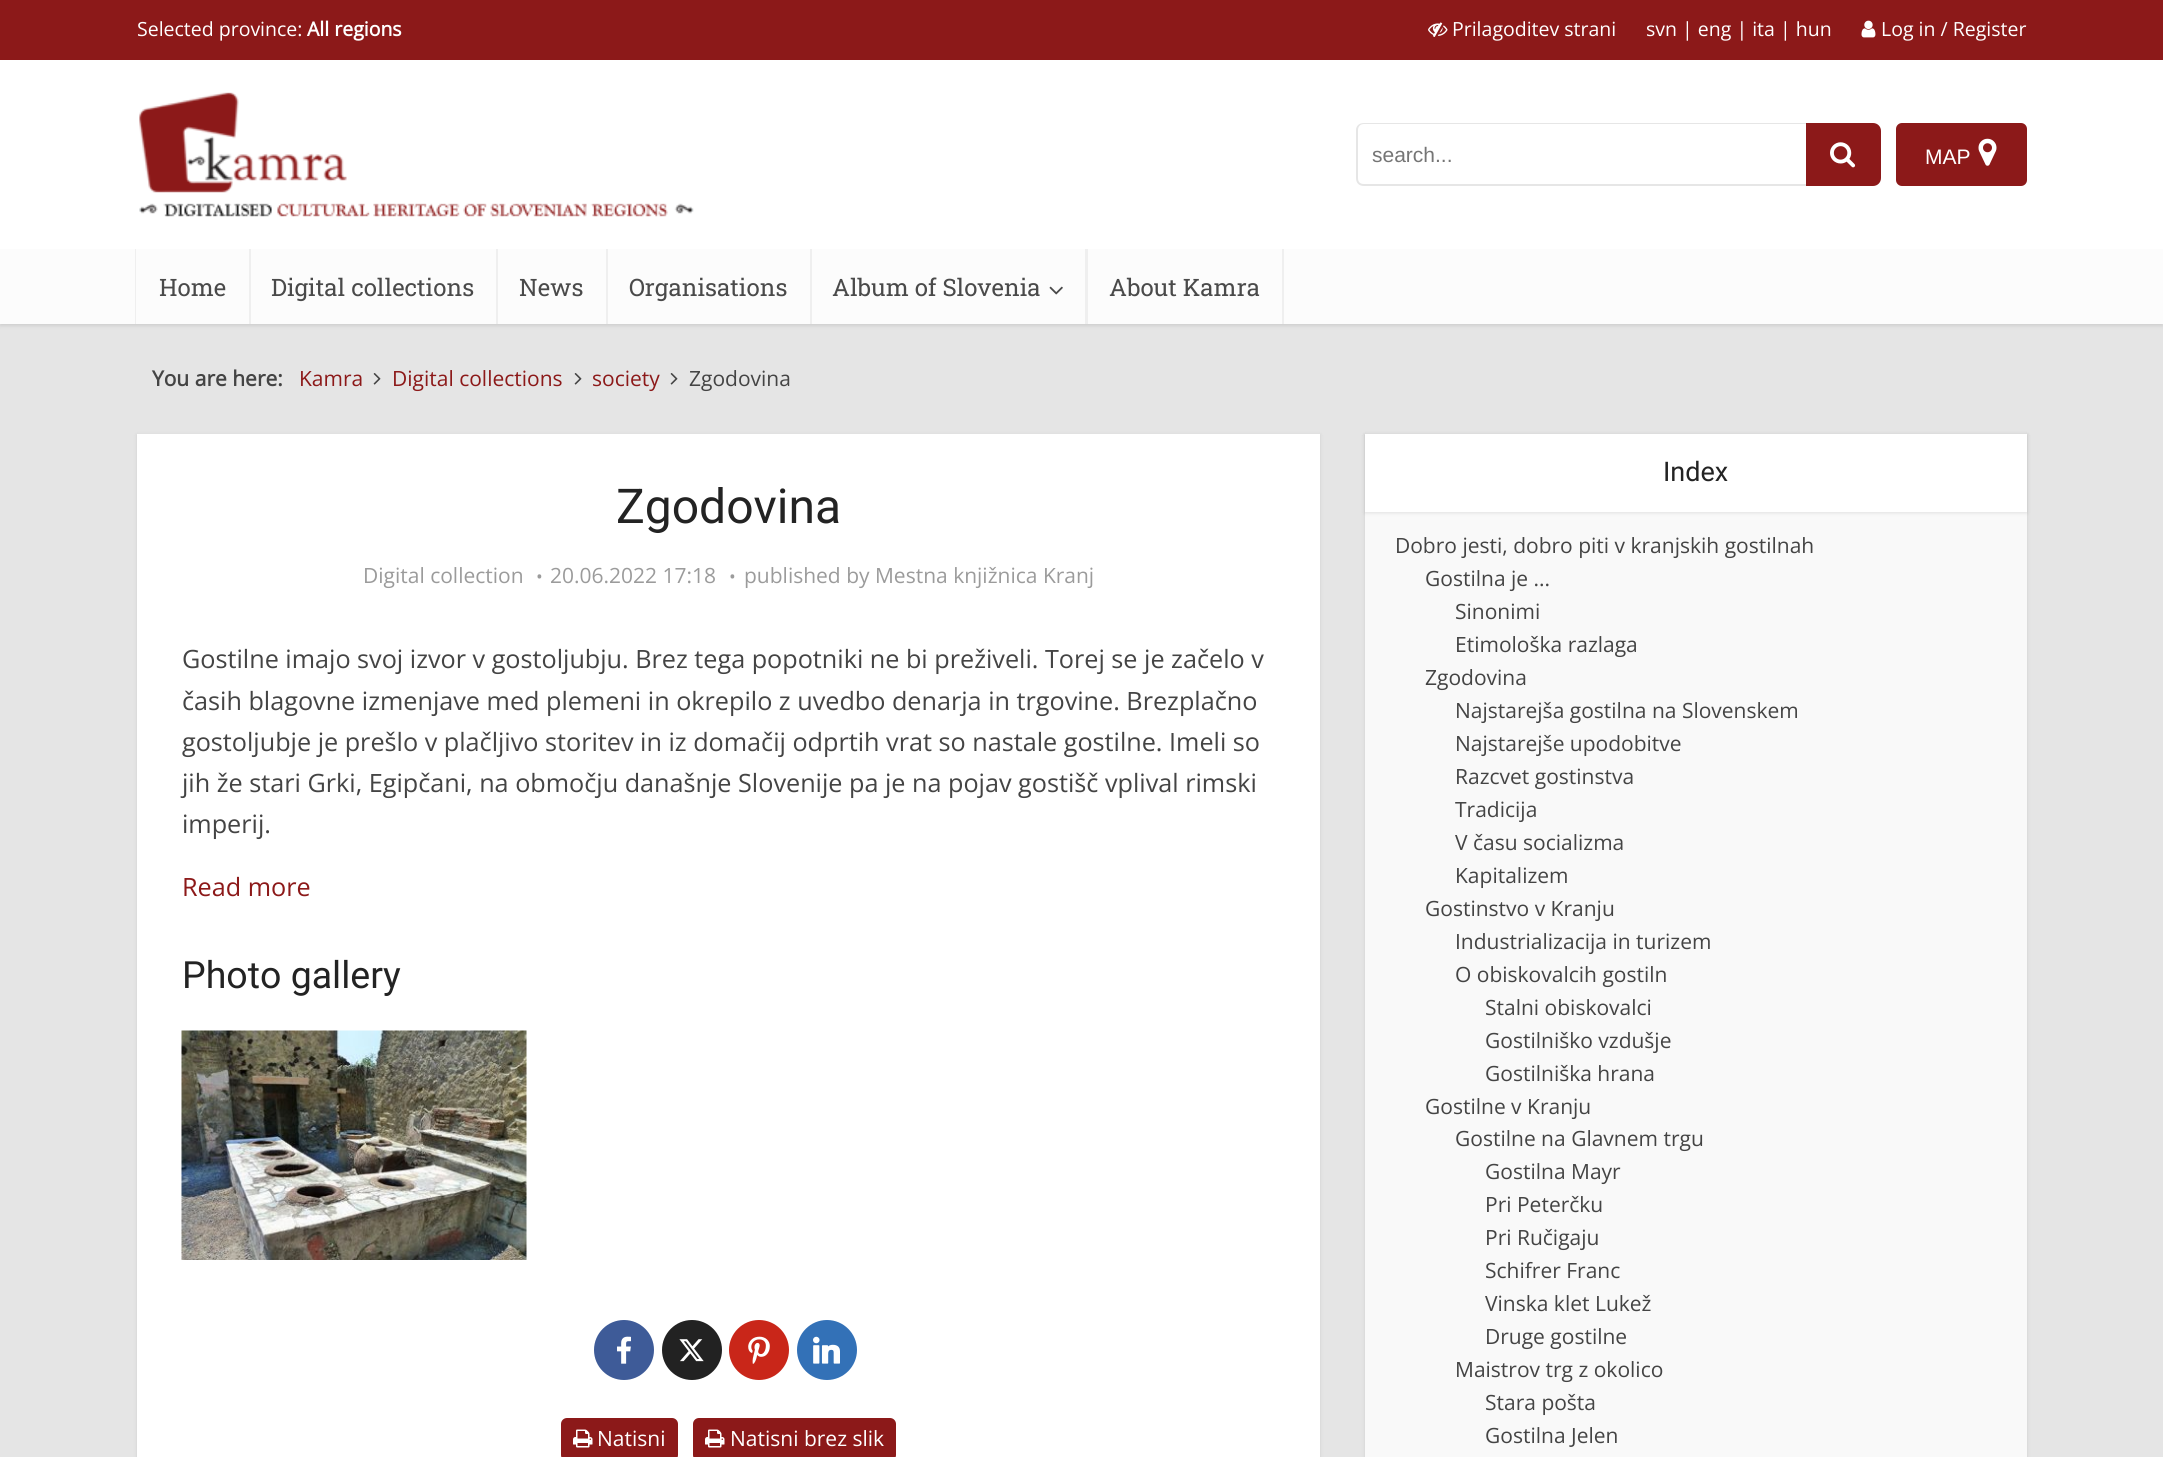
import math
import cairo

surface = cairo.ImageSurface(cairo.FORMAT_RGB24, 2163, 1457)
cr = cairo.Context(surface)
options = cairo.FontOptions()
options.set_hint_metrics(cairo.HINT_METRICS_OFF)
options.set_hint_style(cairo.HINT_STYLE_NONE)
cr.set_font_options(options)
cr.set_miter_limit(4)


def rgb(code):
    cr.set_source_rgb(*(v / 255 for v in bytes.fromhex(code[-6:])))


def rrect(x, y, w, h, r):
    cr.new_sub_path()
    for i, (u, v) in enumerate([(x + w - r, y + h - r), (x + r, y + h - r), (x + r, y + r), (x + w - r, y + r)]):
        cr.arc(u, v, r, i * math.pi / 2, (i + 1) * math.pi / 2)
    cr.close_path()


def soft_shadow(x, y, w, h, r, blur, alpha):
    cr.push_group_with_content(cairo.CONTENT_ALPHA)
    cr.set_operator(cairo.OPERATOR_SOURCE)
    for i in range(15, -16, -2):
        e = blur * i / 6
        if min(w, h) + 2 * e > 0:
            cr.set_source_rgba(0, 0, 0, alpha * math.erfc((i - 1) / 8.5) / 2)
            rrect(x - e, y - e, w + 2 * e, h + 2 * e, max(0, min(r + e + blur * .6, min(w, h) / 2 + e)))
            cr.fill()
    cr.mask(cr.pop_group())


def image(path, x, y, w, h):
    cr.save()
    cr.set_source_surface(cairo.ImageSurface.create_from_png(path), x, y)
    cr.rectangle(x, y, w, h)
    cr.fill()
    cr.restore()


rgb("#e5e5e5")
cr.paint()
rgb("#000000")
soft_shadow(0, 2, 2163, 324, 0, 2, 0.1)
rgb("#ffffff")
cr.rectangle(0, 60, 2163, 189)
cr.fill()
rgb("#8c1919")
cr.rectangle(0, 0, 2163, 60)
cr.fill()
image("img/1.png", 1428, 22, 20, 15)
image("img/2.png", 1861, 20, 15, 18)
image("img/3.png", 139, 92, 555, 125)
rgb("#e6e6e6")
cr.set_fill_rule(cairo.FILL_RULE_EVEN_ODD)
cr.new_path()
cr.move_to(1364, 123)
cr.line_to(1806, 123)
cr.line_to(1806, 186)
cr.line_to(1364, 186)
cr.curve_to(1359, 186, 1356, 183, 1356, 178)
cr.line_to(1356, 130)
cr.curve_to(1356, 126, 1359, 123, 1364, 123)
cr.close_path()
cr.move_to(1364, 124)
cr.line_to(1806, 124)
cr.line_to(1806, 184)
cr.line_to(1364, 184)
cr.curve_to(1360, 184, 1358, 182, 1358, 178)
cr.line_to(1358, 130)
cr.curve_to(1358, 127, 1360, 124, 1364, 124)
cr.close_path()
cr.fill()
rgb("#8c1919")
cr.new_path()
cr.move_to(1806, 123)
cr.line_to(1873, 123)
cr.curve_to(1877.5, 123, 1881, 126.5, 1881, 131)
cr.line_to(1881, 178)
cr.curve_to(1881, 182.5, 1877.5, 186, 1873, 186)
cr.line_to(1806, 186)
cr.close_path()
cr.fill()
image("img/4.png", 1830, 142, 26, 26)
rrect(1896, 123, 131, 63, 6)
cr.fill()
image("img/5.png", 1978, 138, 19, 28)
for x, y, w, h, color in [
    (0, 249, 2163, 75, "#fcfcfc"),
    (249, 249, 2, 75, "#efefef"),
    (135, 249, 1, 75, "#efefef"),
    (496, 249, 2, 75, "#efefef"),
    (606, 249, 2, 75, "#efefef"),
    (810, 249, 2, 75, "#efefef"),
    (1085, 249, 3, 75, "#efefef"),
]:
    rgb(color)
    cr.rectangle(x, y, w, h)
    cr.fill()
image("img/6.png", 1049, 286, 14, 9)
cr.rectangle(1282, 249, 2, 75)
cr.fill()
image("img/7.png", 373, 373, 8, 12)
image("img/7.png", 574, 373, 8, 12)
image("img/7.png", 670, 373, 8, 12)
rgb("#000000")
soft_shadow(137, 435, 1183, 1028, 0, 2, 0.1)
rgb("#ffffff")
cr.rectangle(137, 434, 1183, 1023)
cr.fill()
image("img/8.png", 181, 1030, 346, 230)
rgb("#3e5b98")
cr.arc(624, 1350, 30, 0, 2 * math.pi)
cr.fill()
image("img/9.png", 617, 1336, 14, 28)
rgb("#222222")
cr.arc(692, 1350, 30, 0, 2 * math.pi)
cr.fill()
image("img/10.png", 679, 1339, 25, 23)
rgb("#c92619")
cr.arc(759, 1350, 30, 0, 2 * math.pi)
cr.fill()
image("img/11.png", 748, 1336, 22, 28)
rgb("#3371b7")
cr.arc(827, 1350, 30, 0, 2 * math.pi)
cr.fill()
image("img/12.png", 813, 1336, 27, 28)
rgb("#8c1919")
rrect(561, 1418, 117, 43, 6)
cr.fill()
image("img/13.png", 573, 1429, 20, 19)
rrect(693, 1418, 203, 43, 6)
cr.fill()
image("img/13.png", 705, 1429, 20, 19)
rgb("#000000")
soft_shadow(1365, 435, 662, 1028, 0, 2, 0.1)
rgb("#f9f9f9")
cr.rectangle(1365, 512, 662, 945)
cr.fill()
rgb("#000000")
soft_shadow(1365, 435, 662, 78, 0, 2, 0.1)
rgb("#ffffff")
cr.rectangle(1365, 434, 662, 78)
cr.fill()
cr.select_font_face("Open Sans")
cr.set_font_size(19.5)
cr.move_to(137, 36)
cr.show_text("Selected province:")
cr.select_font_face("Open Sans", cairo.FONT_SLANT_NORMAL, cairo.FONT_WEIGHT_BOLD)
cr.move_to(307, 36)
cr.show_text("All regions")
cr.select_font_face("Open Sans")
for x, y, s in [
    (1452, 36, "Prilagoditev strani"),
    (1646, 36, "svn | eng | ita | hun"),
    (1881, 36, "Log in / Register"),
]:
    cr.move_to(x, y)
    cr.show_text(s)
cr.select_font_face("Liberation Sans")
cr.set_font_size(21)
rgb("#757575")
cr.move_to(1372, 162)
cr.show_text("search...")
rgb("#ffffff")
cr.move_to(1925, 164)
cr.show_text("MAP")
cr.select_font_face("Roboto Slab")
cr.set_font_size(24)
rgb("#4a4a4a")
for x, y, s in [
    (159, 296, "Home"),
    (271, 296, "Digital collections"),
    (519, 296, "News"),
    (629, 296, "Organisations"),
    (832, 296, "Album of Slovenia"),
    (1109, 296, "About Kamra"),
]:
    cr.move_to(x, y)
    cr.show_text(s)
cr.select_font_face("Open Sans", cairo.FONT_SLANT_NORMAL, cairo.FONT_WEIGHT_BOLD)
cr.set_font_size(21)
rgb("#444444")
cr.move_to(152, 386)
cr.show_text("You are here:")
cr.select_font_face("Open Sans")
rgb("#8c1919")
for x, y, s in [
    (299, 386, "Kamra"),
    (392, 386, "Digital collections"),
    (592, 386, "society"),
]:
    cr.move_to(x, y)
    cr.show_text(s)
rgb("#444444")
cr.move_to(689, 386)
cr.show_text("Zgodovina")
cr.select_font_face("Roboto")
cr.set_font_size(48)
rgb("#232323")
cr.move_to(616, 523)
cr.show_text("Zgodovina")
cr.select_font_face("Open Sans")
cr.set_font_size(21)
rgb("#9b9b9b")
cr.move_to(363, 583)
cr.show_text("Digital collection")
cr.set_font_size(18)
cr.move_to(536, 583)
cr.show_text("•")
cr.set_font_size(21)
cr.move_to(550, 583)
cr.show_text("20.06.2022 17:18")
cr.set_font_size(18)
cr.move_to(729, 583)
cr.show_text("•")
cr.set_font_size(21)
cr.move_to(744, 583)
cr.show_text("published by Mestna knjižnica Kranj")
cr.set_font_size(25.2)
rgb("#444444")
for x, y, s in [
    (182, 668, "Gostilne imajo svoj izvor v gostoljubju. Brez tega popotniki ne bi preživeli. Torej se je začelo v"),
    (182, 710, "časih blagovne izmenjave med plemeni in okrepilo z uvedbo denarja in trgovine. Brezplačno"),
    (182, 751, "gostoljubje je prešlo v plačljivo storitev in iz domačij odprtih vrat so nastale gostilne. Imeli so"),
    (182, 792, "jih že stari Grki, Egipčani, na območju današnje Slovenije pa je na pojav gostišč vplival rimski"),
    (182, 833, "imperij."),
]:
    cr.move_to(x, y)
    cr.show_text(s)
rgb("#8c1919")
cr.move_to(182, 896)
cr.show_text("Read more")
cr.select_font_face("Roboto")
cr.set_font_size(37.5)
rgb("#232323")
cr.move_to(182, 988)
cr.show_text("Photo gallery")
cr.select_font_face("Open Sans")
cr.set_font_size(21)
rgb("#ffffff")
cr.move_to(597, 1446)
cr.show_text("Natisni")
cr.move_to(730, 1446)
cr.show_text("Natisni brez slik")
cr.select_font_face("Roboto")
cr.set_font_size(27)
rgb("#232323")
cr.move_to(1663, 481)
cr.show_text("Index")
cr.select_font_face("Open Sans")
cr.set_font_size(21)
rgb("#444444")
for x, y, s in [
    (1395, 553, "Dobro jesti, dobro piti v kranjskih gostilnah"),
    (1425, 586, "Gostilna je ..."),
    (1455, 619, "Sinonimi"),
    (1455, 652, "Etimološka razlaga"),
    (1425, 685, "Zgodovina"),
    (1455, 718, "Najstarejša gostilna na Slovenskem"),
    (1455, 751, "Najstarejše upodobitve"),
    (1455, 784, "Razcvet gostinstva"),
    (1455, 817, "Tradicija"),
    (1455, 850, "V času socializma"),
    (1455, 883, "Kapitalizem"),
    (1425, 916, "Gostinstvo v Kranju"),
    (1455, 949, "Industrializacija in turizem"),
    (1455, 982, "O obiskovalcih gostiln"),
    (1485, 1015, "Stalni obiskovalci"),
    (1485, 1048, "Gostilniško vzdušje"),
    (1485, 1081, "Gostilniška hrana"),
    (1425, 1114, "Gostilne v Kranju"),
    (1455, 1146, "Gostilne na Glavnem trgu"),
    (1485, 1179, "Gostilna Mayr"),
    (1485, 1212, "Pri Peterčku"),
    (1485, 1245, "Pri Ručigaju"),
    (1485, 1278, "Schifrer Franc"),
    (1485, 1311, "Vinska klet Lukež"),
    (1485, 1344, "Druge gostilne"),
    (1455, 1377, "Maistrov trg z okolico"),
    (1485, 1410, "Stara pošta"),
    (1485, 1443, "Gostilna Jelen"),
]:
    cr.move_to(x, y)
    cr.show_text(s)
surface.write_to_png("page.png")
